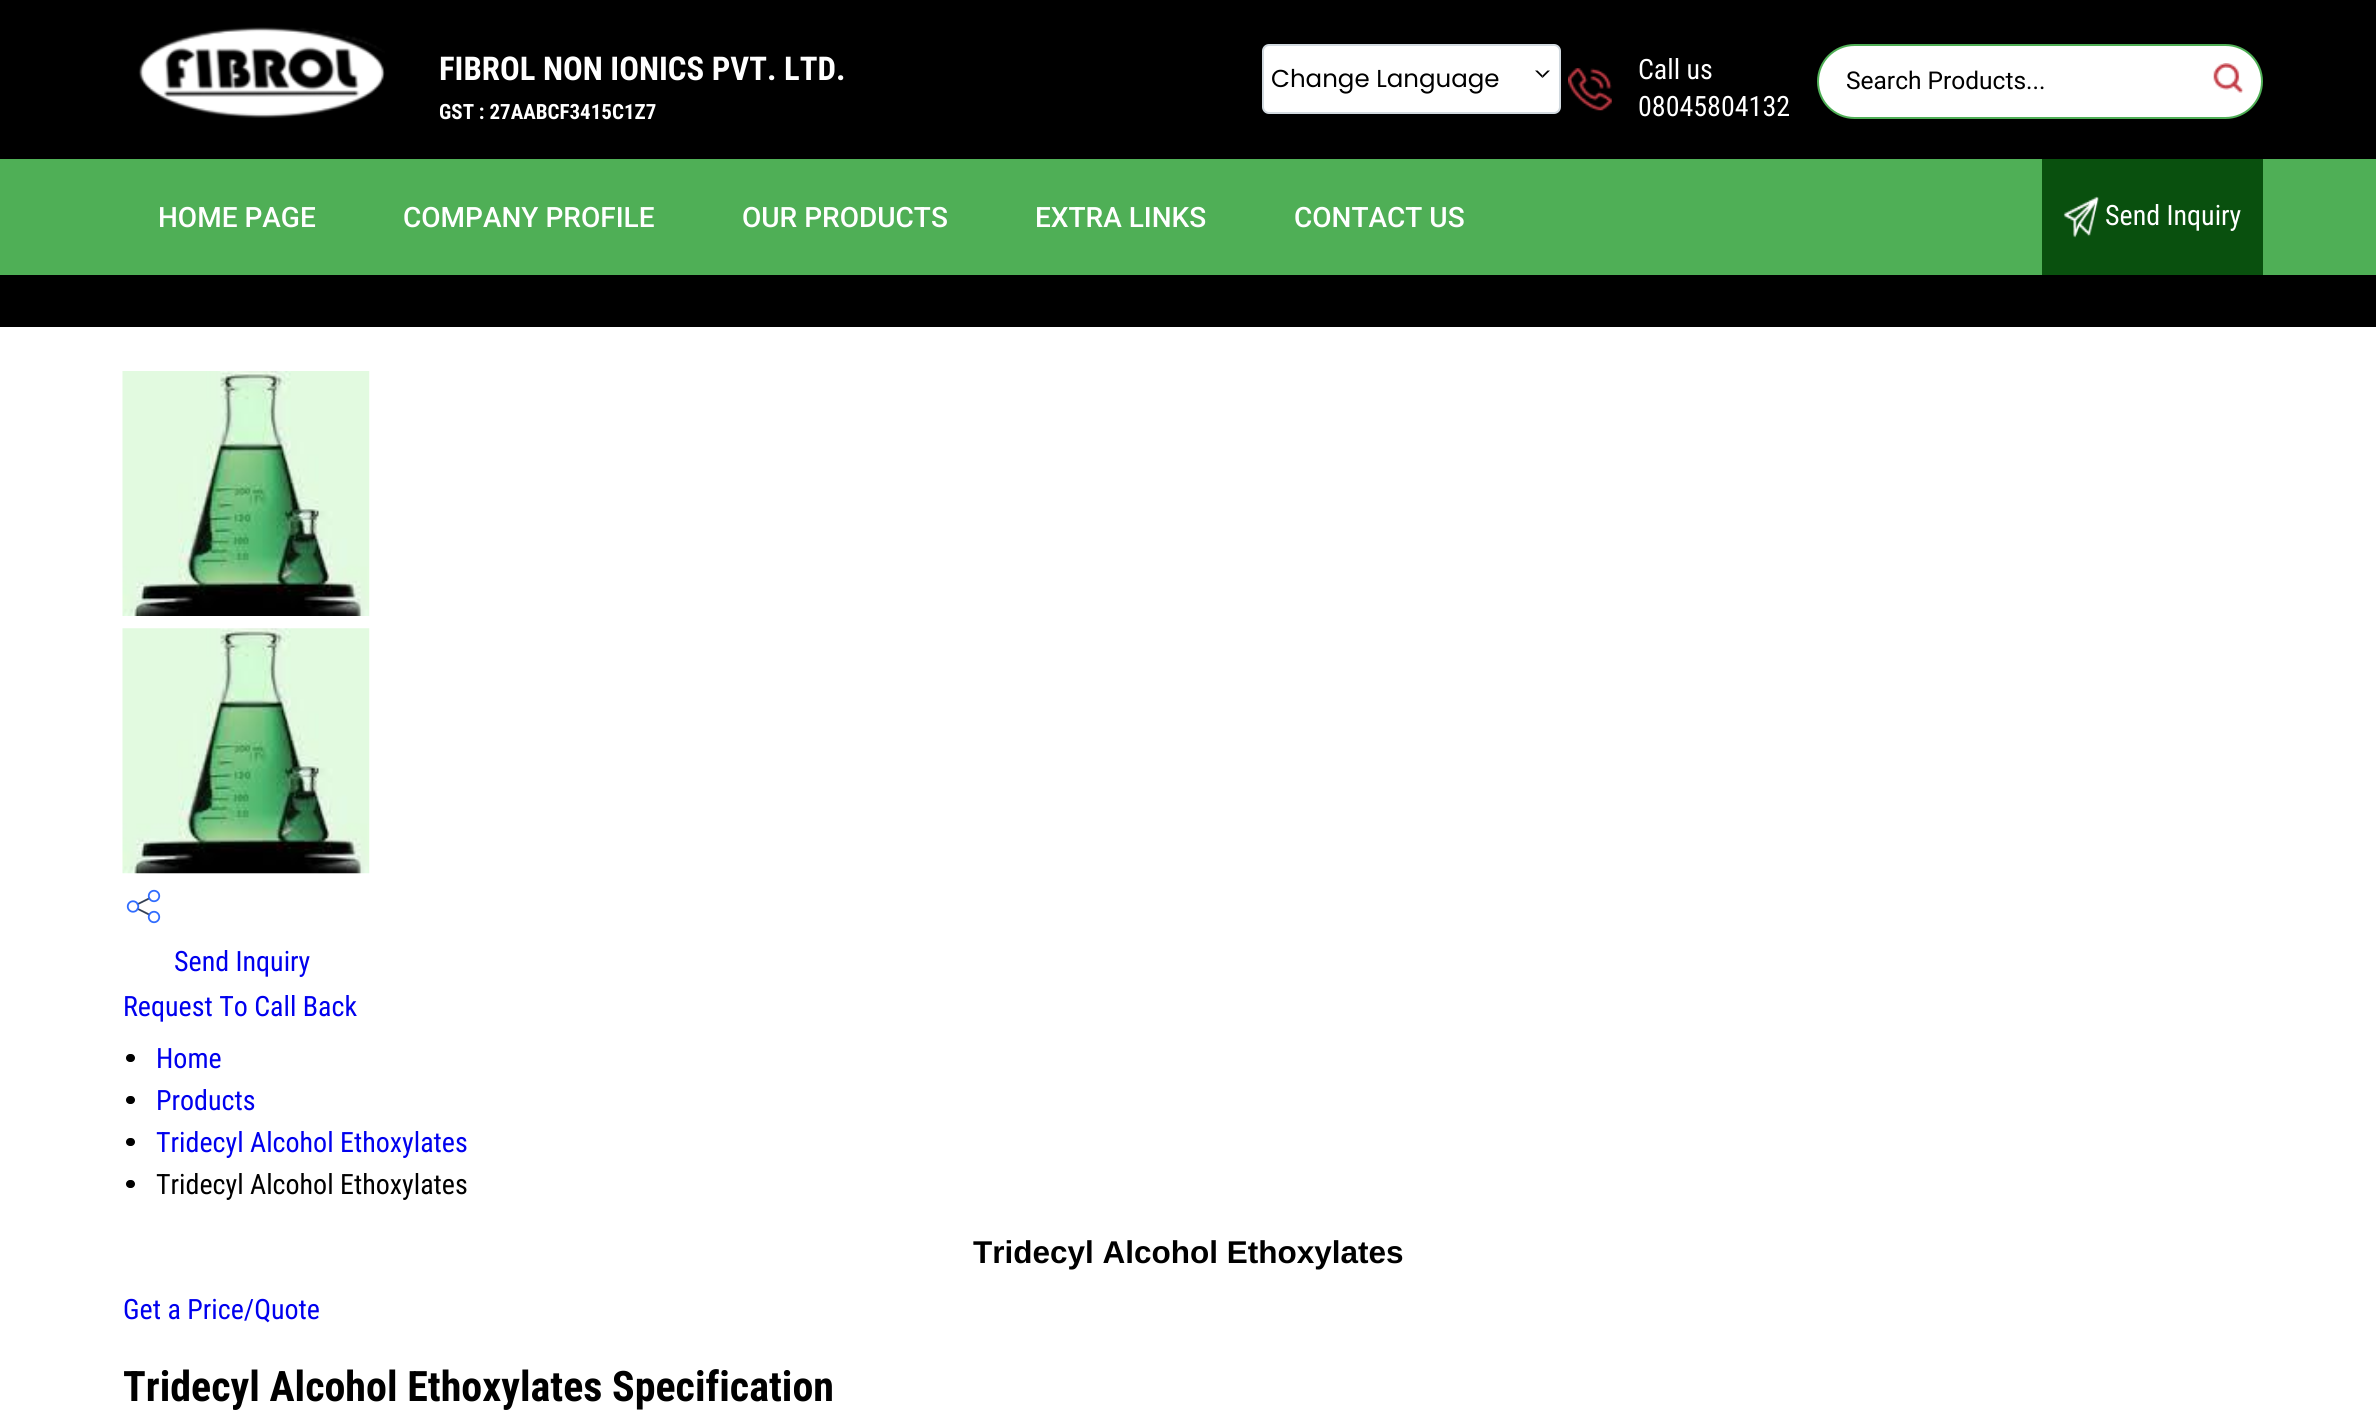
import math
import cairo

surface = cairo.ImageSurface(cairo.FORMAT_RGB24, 2376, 1416)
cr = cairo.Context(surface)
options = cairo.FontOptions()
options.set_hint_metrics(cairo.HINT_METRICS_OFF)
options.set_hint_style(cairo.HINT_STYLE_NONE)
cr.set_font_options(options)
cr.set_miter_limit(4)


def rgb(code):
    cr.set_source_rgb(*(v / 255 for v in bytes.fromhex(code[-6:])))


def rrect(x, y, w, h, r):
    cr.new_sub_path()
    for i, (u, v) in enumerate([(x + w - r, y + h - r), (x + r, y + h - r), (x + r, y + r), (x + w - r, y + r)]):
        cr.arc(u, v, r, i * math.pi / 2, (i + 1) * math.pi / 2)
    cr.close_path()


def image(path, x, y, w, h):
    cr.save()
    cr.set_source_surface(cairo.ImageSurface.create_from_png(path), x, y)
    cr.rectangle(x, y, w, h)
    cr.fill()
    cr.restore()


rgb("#ffffff")
cr.paint()
rgb("#000000")
cr.rectangle(0, 0, 2376, 327)
cr.fill()
image("img/1.png", 138, 27, 247, 91)
rgb("#ffffff")
rrect(1263, 45, 297, 68, 6)
cr.fill_preserve()
rgb("#d2dae0")
cr.stroke()
rgb("#000000")
cr.new_path()
cr.move_to(1550, 70.5)
cr.line_to(1542.5, 78)
cr.line_to(1542.5, 75.5)
cr.line_to(1547.5, 70.5)
cr.close_path()
cr.fill()
cr.new_path()
cr.move_to(1542.5, 78)
cr.line_to(1535, 70.5)
cr.line_to(1537.5, 70.5)
cr.line_to(1542.5, 75.5)
cr.close_path()
cr.fill()
image("img/2.png", 1568, 68, 44, 43)
rgb("#ffffff")
rrect(1818, 45, 444, 73, 36.5)
cr.fill_preserve()
rgb("#4faf56")
cr.stroke()
image("img/3.png", 2213, 63, 31, 30)
cr.rectangle(0, 159, 2376, 116)
cr.fill()
rgb("#09500e")
cr.rectangle(2042, 159, 221, 116)
cr.fill()
image("img/4.png", 2063, 196, 36, 42)
image("img/5.png", 122, 371, 248, 245)
image("img/6.png", 122, 628, 248, 246)
image("img/7.png", 126, 889, 35, 35)
rgb("#000000")
rrect(126, 1054, 9, 8, 4)
cr.fill()
rrect(126, 1096, 9, 8, 4)
cr.fill()
rrect(126, 1138, 9, 8, 4)
cr.fill()
rrect(126, 1180, 9, 8, 4)
cr.fill()
cr.select_font_face("Roboto Condensed", cairo.FONT_SLANT_NORMAL, cairo.FONT_WEIGHT_BOLD)
cr.set_font_size(32.75)
rgb("#ffffff")
cr.move_to(439, 80)
cr.show_text("FIBROL NON IONICS PVT. LTD.")
cr.set_font_size(21)
cr.move_to(439, 119)
cr.show_text("GST : 27AABCF3415C1Z7")
cr.select_font_face("Poppins")
cr.set_font_size(24.5)
rgb("#000000")
cr.move_to(1271, 87)
cr.show_text("Change Language")
cr.select_font_face("Roboto Condensed")
cr.set_font_size(28)
rgb("#ffffff")
cr.move_to(1638, 79)
cr.show_text("Call us")
cr.move_to(1638, 116)
cr.show_text("08045804132")
cr.select_font_face("Roboto")
cr.set_font_size(24.5)
rgb("#000000")
cr.move_to(1846, 89)
cr.show_text("Search Products...")
cr.select_font_face("Roboto Medium")
cr.set_font_size(28)
rgb("#ffffff")
for x, y, s in [
    (158, 227, "HOME PAGE"),
    (403, 227, "COMPANY PROFILE"),
    (742, 227, "OUR PRODUCTS"),
    (1035, 227, "EXTRA LINKS"),
    (1294, 227, "CONTACT US"),
]:
    cr.move_to(x, y)
    cr.show_text(s)
cr.select_font_face("Roboto Condensed")
cr.move_to(2105, 225)
cr.show_text("Send Inquiry")
rgb("#0000ee")
for x, y, s in [
    (174, 971, "Send Inquiry"),
    (123, 1016, "Request To Call Back"),
    (156, 1068, "Home"),
    (156, 1110, "Products"),
    (156, 1152, "Tridecyl Alcohol Ethoxylates"),
]:
    cr.move_to(x, y)
    cr.show_text(s)
rgb("#000000")
cr.move_to(156, 1194)
cr.show_text("Tridecyl Alcohol Ethoxylates")
cr.select_font_face("Liberation Sans", cairo.FONT_SLANT_NORMAL, cairo.FONT_WEIGHT_BOLD)
cr.set_font_size(31.5)
cr.move_to(973, 1263)
cr.show_text("Tridecyl Alcohol Ethoxylates")
cr.select_font_face("Roboto Condensed")
cr.set_font_size(28)
rgb("#0000ee")
cr.move_to(123, 1319)
cr.show_text("Get a Price/Quote")
cr.select_font_face("Roboto Condensed", cairo.FONT_SLANT_NORMAL, cairo.FONT_WEIGHT_BOLD)
cr.set_font_size(42)
rgb("#000000")
cr.move_to(123, 1401)
cr.show_text("Tridecyl Alcohol Ethoxylates Specification")
surface.write_to_png("page.png")
